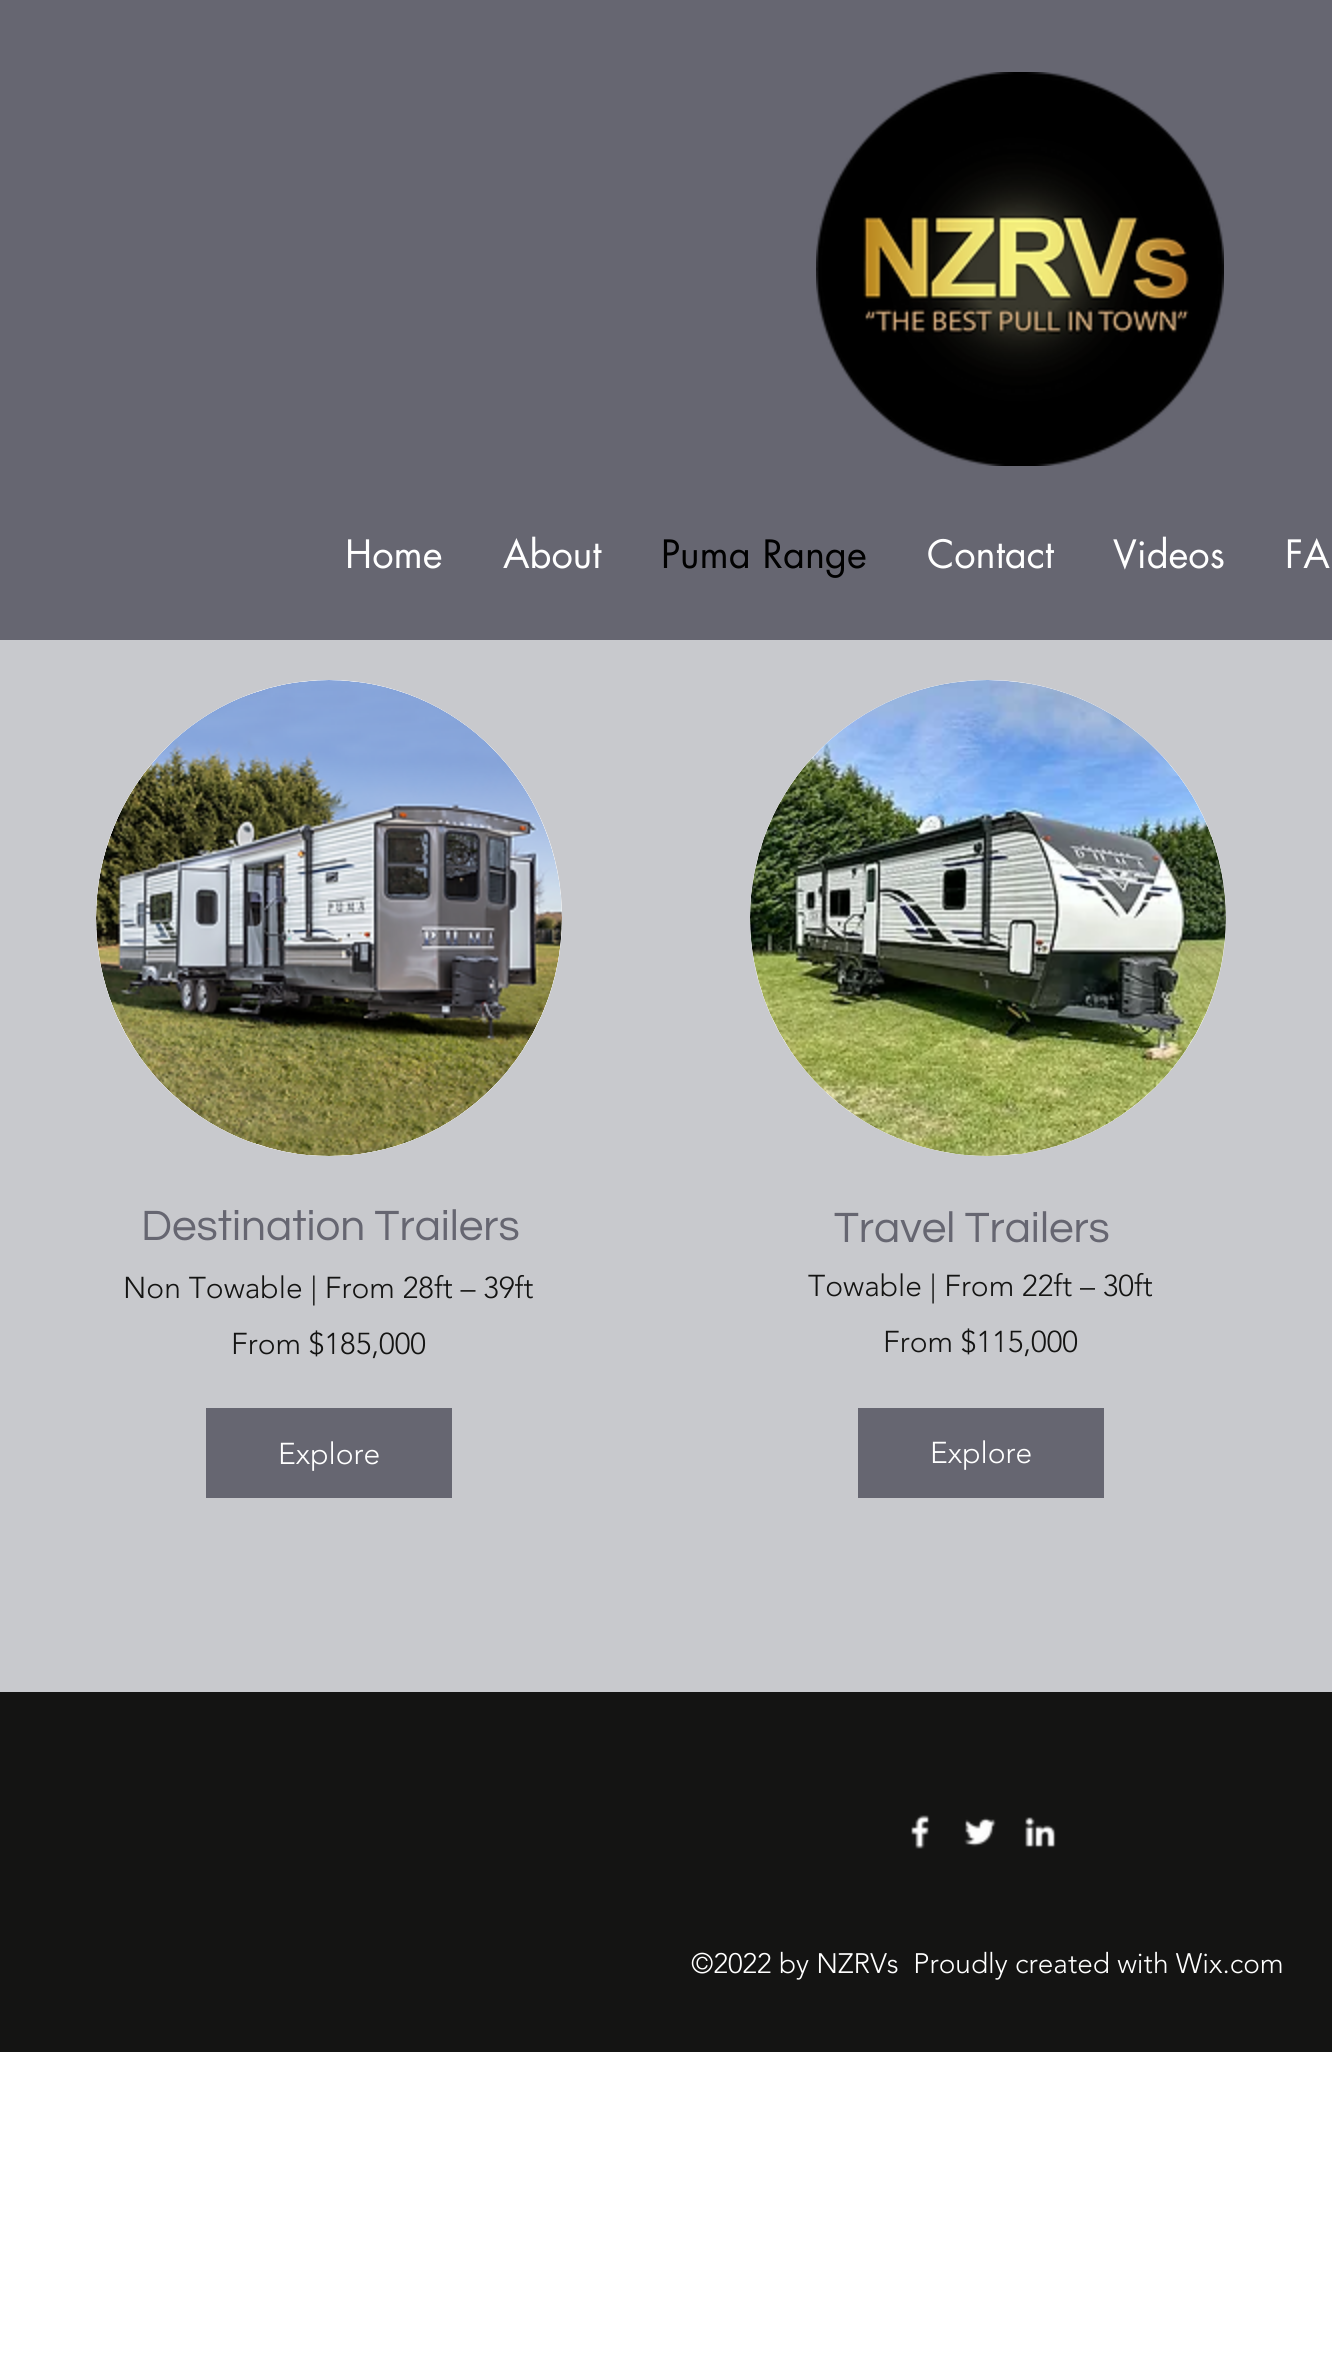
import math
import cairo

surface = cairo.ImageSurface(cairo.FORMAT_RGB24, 1332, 2354)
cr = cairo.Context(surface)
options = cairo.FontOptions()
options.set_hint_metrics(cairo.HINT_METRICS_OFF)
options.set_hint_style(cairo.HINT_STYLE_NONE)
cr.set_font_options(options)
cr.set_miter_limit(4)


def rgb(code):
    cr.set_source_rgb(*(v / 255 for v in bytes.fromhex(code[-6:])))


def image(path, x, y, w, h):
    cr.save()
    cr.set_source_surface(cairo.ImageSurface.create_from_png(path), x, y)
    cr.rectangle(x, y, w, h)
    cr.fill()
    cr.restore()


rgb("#ffffff")
cr.paint()
rgb("#666671")
cr.rectangle(0, 0, 1332, 640)
cr.fill()
image("img/1.png", 816, 72, 408, 394)
rgb("#c8c9cd")
cr.rectangle(0, 640, 1332, 1052)
cr.fill()
rgb("#ffffff")
cr.new_path()
cr.move_to(329, 680)
cr.curve_to(457.5, 680, 562, 786.5, 562, 918)
cr.curve_to(562, 1049.5, 457.5, 1156, 329, 1156)
cr.curve_to(200.5, 1156, 96, 1049.5, 96, 918)
cr.curve_to(96, 786.5, 200.5, 680, 329, 680)
cr.close_path()
cr.fill()
image("img/2.png", 96, 680, 466, 476)
rgb("#666671")
cr.rectangle(206, 1408, 246, 90)
cr.fill()
rgb("#ffffff")
cr.arc(988, 918, 238, 0, 2 * math.pi)
cr.fill()
image("img/3.png", 750, 680, 476, 476)
rgb("#666671")
cr.rectangle(858, 1408, 246, 90)
cr.fill()
rgb("#141413")
cr.rectangle(0, 1692, 1332, 360)
cr.fill()
image("img/4.png", 911, 1815, 19, 34)
image("img/5.png", 964, 1817, 32, 30)
image("img/6.png", 1025, 1817, 31, 31)
cr.select_font_face("futura")
cr.set_font_size(38)
rgb("#ffffff")
cr.move_to(345, 568)
cr.show_text("Home")
cr.move_to(503, 568)
cr.show_text("About")
rgb("#000000")
cr.move_to(661, 568)
cr.show_text("Puma Range")
rgb("#ffffff")
for x, y, s in [
    (927, 568, "Contact"),
    (1113, 568, "Videos"),
    (1285, 568, "FA"),
]:
    cr.move_to(x, y)
    cr.show_text(s)
cr.select_font_face("Questrial")
cr.set_font_size(44)
rgb("#666671")
cr.move_to(141, 1240)
cr.show_text("Destination Trailers")
cr.select_font_face("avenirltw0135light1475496 Light")
cr.set_font_size(30)
rgb("#141413")
cr.move_to(123, 1298)
cr.show_text("Non Towable | From 28ft – 39ft")
cr.move_to(231, 1354)
cr.show_text("From $185,000")
rgb("#ffffff")
cr.move_to(278, 1464)
cr.show_text("Explore")
cr.select_font_face("Questrial")
cr.set_font_size(44)
rgb("#666671")
cr.move_to(834, 1242)
cr.show_text("Travel Trailers")
cr.select_font_face("avenirltw0135light1475496 Light")
cr.set_font_size(30)
rgb("#141413")
cr.move_to(808, 1296)
cr.show_text("Towable | From 22ft – 30ft")
cr.move_to(883, 1352)
cr.show_text("From $115,000")
rgb("#ffffff")
cr.move_to(930, 1463)
cr.show_text("Explore")
cr.set_font_size(28)
cr.move_to(691, 1973)
cr.show_text("©2022 by NZRVs  Proudly created with Wix.com")
surface.write_to_png("page.png")
